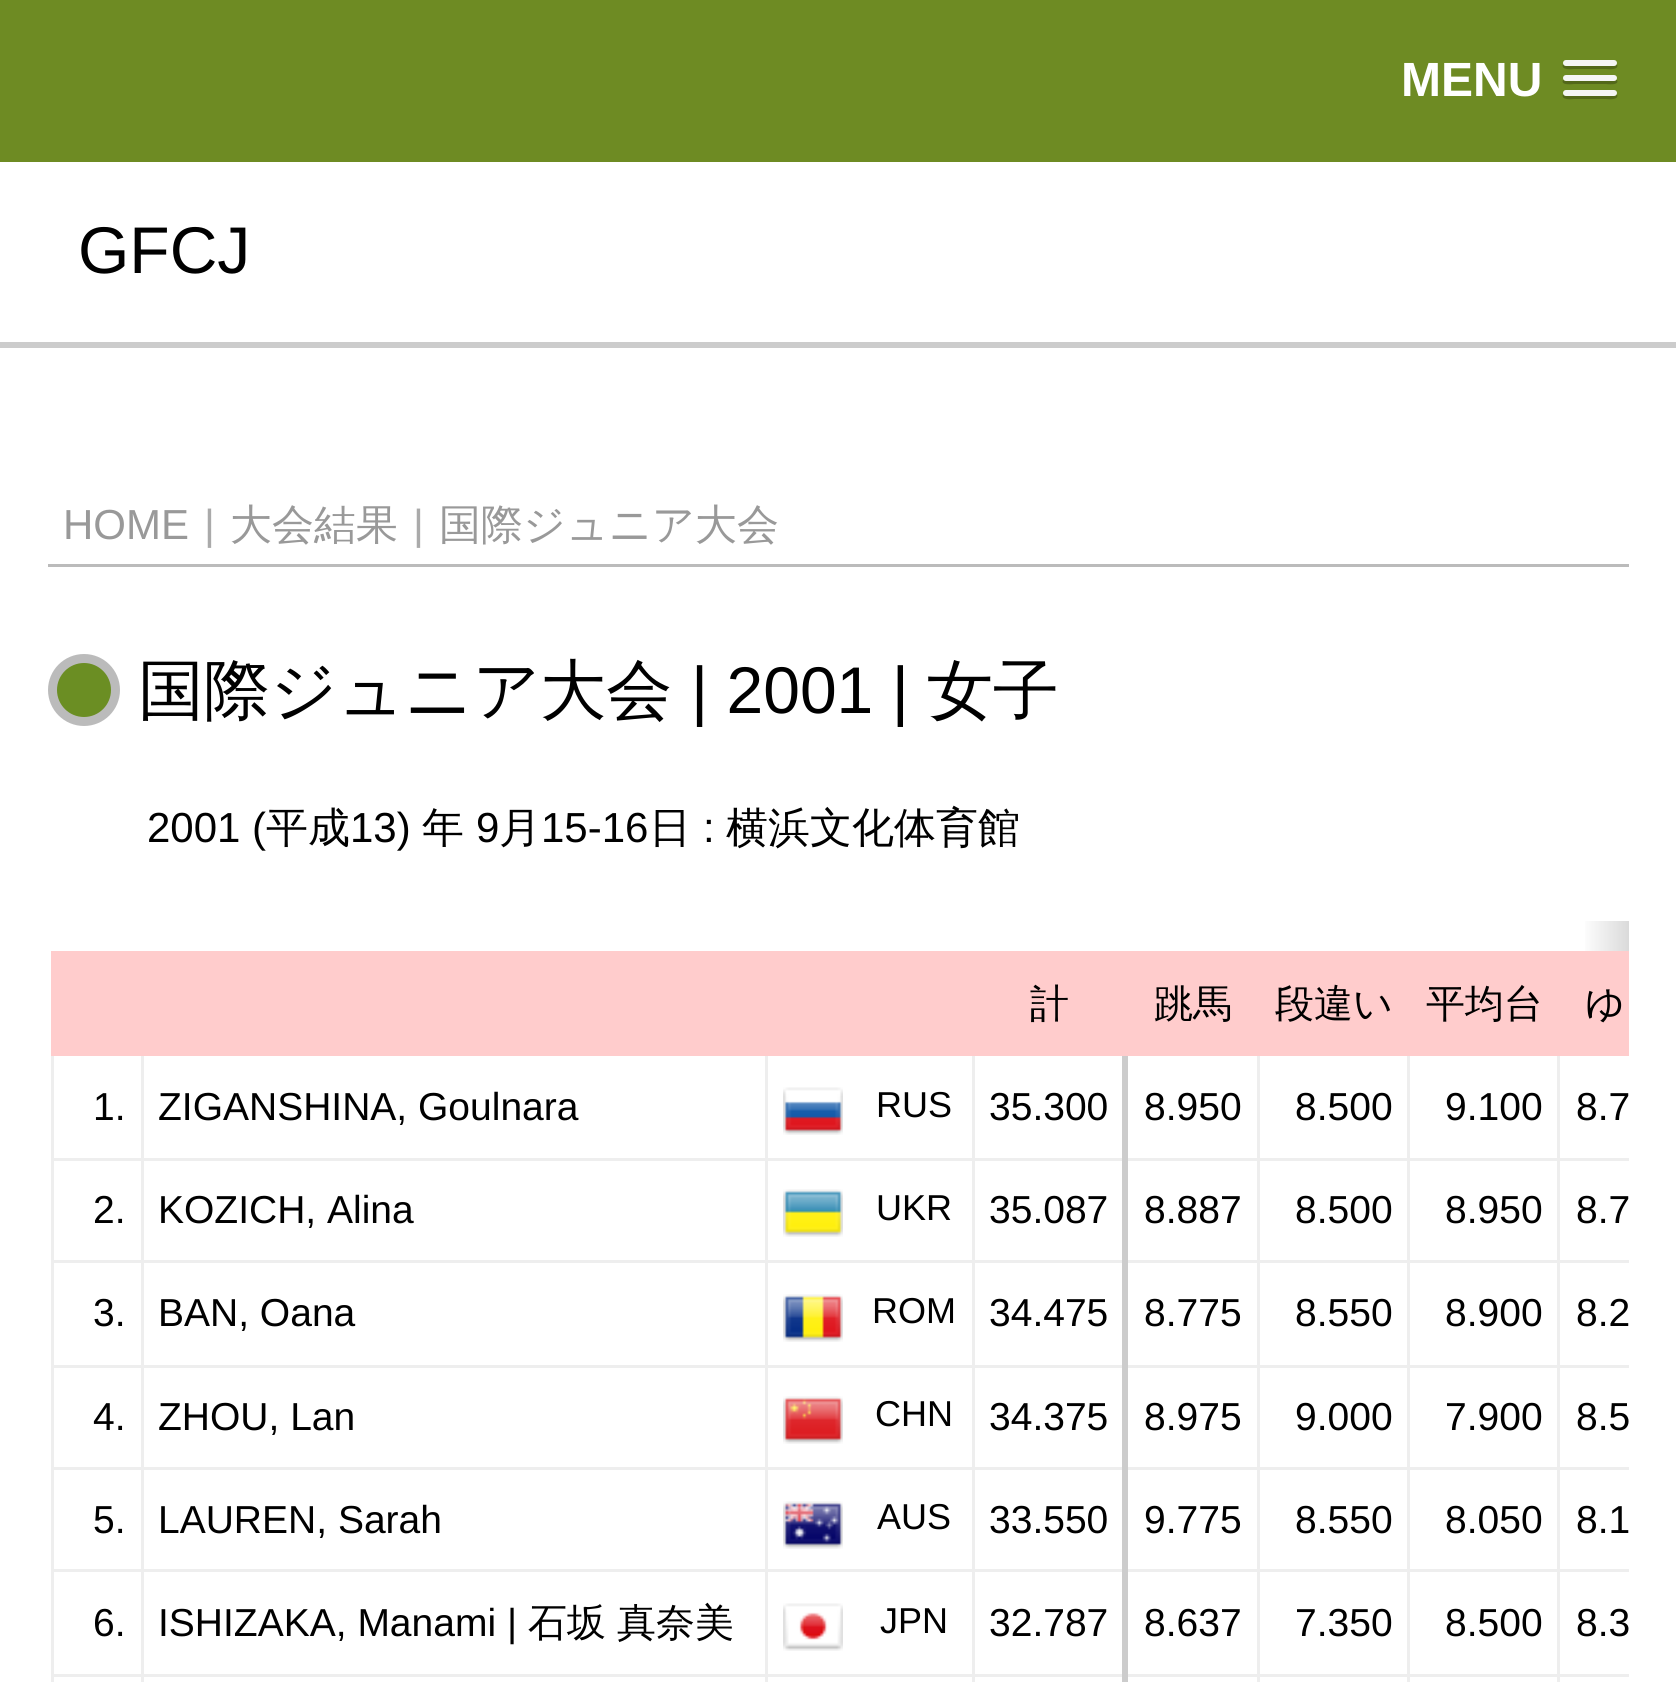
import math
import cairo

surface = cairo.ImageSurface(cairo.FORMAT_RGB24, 1676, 1682)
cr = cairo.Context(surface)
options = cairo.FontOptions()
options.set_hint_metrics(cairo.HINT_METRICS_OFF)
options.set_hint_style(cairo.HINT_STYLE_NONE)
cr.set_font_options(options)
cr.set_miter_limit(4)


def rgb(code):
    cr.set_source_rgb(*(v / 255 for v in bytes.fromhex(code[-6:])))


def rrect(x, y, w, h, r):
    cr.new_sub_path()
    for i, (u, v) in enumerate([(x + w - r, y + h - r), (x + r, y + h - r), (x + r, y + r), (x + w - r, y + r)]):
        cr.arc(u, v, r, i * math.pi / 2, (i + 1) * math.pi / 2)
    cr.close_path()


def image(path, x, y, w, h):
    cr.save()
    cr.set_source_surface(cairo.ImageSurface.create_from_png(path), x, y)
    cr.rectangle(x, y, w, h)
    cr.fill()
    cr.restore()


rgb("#ffffff")
cr.paint()
rgb("#6e8b23")
cr.rectangle(0, 0, 1676, 162)
cr.fill()
rgb("#53681a")
cr.new_path()
cr.move_to(1563, 64)
cr.curve_to(1560, 71, 1574, 69, 1574, 69)
cr.line_to(1606, 69)
cr.curve_to(1606, 69, 1620, 71, 1617, 64)
cr.curve_to(1616, 65, 1615, 66, 1614, 66)
cr.line_to(1566, 66)
cr.curve_to(1565, 66, 1564, 65, 1563, 64)
cr.close_path()
cr.fill()
rgb("#f5f5f5")
rrect(1563, 60, 54, 6, 3)
cr.fill()
rgb("#53681a")
cr.new_path()
cr.move_to(1563, 80)
cr.curve_to(1560, 86, 1574, 84, 1574, 84)
cr.line_to(1606, 84)
cr.curve_to(1606, 84, 1620, 86, 1617, 80)
cr.curve_to(1616, 80, 1615, 81, 1614, 81)
cr.line_to(1566, 81)
cr.curve_to(1565, 81, 1564, 80, 1563, 80)
cr.close_path()
cr.fill()
rgb("#f5f5f5")
rrect(1563, 75, 54, 6, 3)
cr.fill()
rgb("#53681a")
cr.new_path()
cr.move_to(1563, 94)
cr.curve_to(1560, 101, 1574, 99, 1574, 99)
cr.line_to(1606, 99)
cr.curve_to(1606, 99, 1620, 101, 1617, 94)
cr.curve_to(1616, 95, 1615, 96, 1614, 96)
cr.line_to(1566, 96)
cr.curve_to(1565, 96, 1564, 95, 1563, 94)
cr.close_path()
cr.fill()
rgb("#f5f5f5")
rrect(1563, 90, 54, 6, 3)
cr.fill()
rgb("#cccccc")
cr.rectangle(0, 342, 1676, 6)
cr.fill()
rgb("#bbbbbb")
cr.rectangle(48, 564, 1581, 3)
cr.fill()
rgb("#6b8e23")
cr.arc(84, 690, 31.5, 0, 2 * math.pi)
cr.fill_preserve()
rgb("#bbbbbb")
cr.set_line_width(9)
cr.stroke()
gradient = cairo.LinearGradient(1629, 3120, 48, 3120)
gradient.add_color_stop_rgba(0, 0.855, 0.855, 0.855, 1)
gradient.add_color_stop_rgba(0.03, 1, 1, 1, 1)
gradient.add_color_stop_rgba(1, 1, 1, 1, 1)
cr.set_source(gradient)
cr.rectangle(1585, 921, 44, 761)
cr.fill()
for x, y, w, h, color in [
    (1585, 1056, 44, 626, "#ffffff"),
    (1557, 1158, 72, 3, "#eeeeee"),
    (1557, 1260, 72, 3, "#eeeeee"),
    (1557, 1365, 72, 3, "#eeeeee"),
    (1557, 1467, 72, 3, "#eeeeee"),
    (1557, 1569, 72, 3, "#eeeeee"),
    (1557, 1674, 72, 3, "#eeeeee"),
    (1557, 1674, 3, 8, "#eeeeee"),
    (1407, 1674, 153, 3, "#eeeeee"),
    (1557, 1569, 3, 108, "#eeeeee"),
    (1407, 1569, 153, 3, "#eeeeee"),
    (1557, 1467, 3, 105, "#eeeeee"),
    (1407, 1467, 153, 3, "#eeeeee"),
    (1557, 1365, 3, 105, "#eeeeee"),
    (1407, 1365, 153, 3, "#eeeeee"),
    (1557, 1260, 3, 108, "#eeeeee"),
    (1407, 1260, 153, 3, "#eeeeee"),
    (1557, 1158, 3, 105, "#eeeeee"),
    (1407, 1158, 153, 3, "#eeeeee"),
    (1407, 1674, 3, 8, "#eeeeee"),
    (1257, 1674, 153, 3, "#eeeeee"),
    (1407, 1569, 3, 108, "#eeeeee"),
    (1257, 1569, 153, 3, "#eeeeee"),
    (1407, 1467, 3, 105, "#eeeeee"),
    (1257, 1467, 153, 3, "#eeeeee"),
    (1407, 1365, 3, 105, "#eeeeee"),
    (1257, 1365, 153, 3, "#eeeeee"),
    (1407, 1260, 3, 108, "#eeeeee"),
    (1257, 1260, 153, 3, "#eeeeee"),
    (1407, 1158, 3, 105, "#eeeeee"),
    (1257, 1158, 153, 3, "#eeeeee"),
    (1257, 1674, 3, 8, "#eeeeee"),
    (765, 1674, 495, 3, "#eeeeee"),
    (1257, 1569, 3, 108, "#eeeeee"),
    (765, 1569, 495, 3, "#eeeeee"),
    (1257, 1467, 3, 105, "#eeeeee"),
    (765, 1467, 495, 3, "#eeeeee"),
    (1257, 1365, 3, 105, "#eeeeee"),
    (765, 1365, 495, 3, "#eeeeee"),
    (1257, 1260, 3, 108, "#eeeeee"),
    (765, 1260, 495, 3, "#eeeeee"),
    (1257, 1158, 3, 105, "#eeeeee"),
    (765, 1158, 495, 3, "#eeeeee"),
    (765, 1674, 3, 8, "#eeeeee"),
    (141, 1674, 627, 3, "#eeeeee"),
    (765, 1569, 3, 108, "#eeeeee"),
    (141, 1569, 627, 3, "#eeeeee"),
    (765, 1467, 3, 105, "#eeeeee"),
    (141, 1467, 627, 3, "#eeeeee"),
    (765, 1365, 3, 105, "#eeeeee"),
    (141, 1365, 627, 3, "#eeeeee"),
    (765, 1260, 3, 108, "#eeeeee"),
    (141, 1260, 627, 3, "#eeeeee"),
    (765, 1158, 3, 105, "#eeeeee"),
    (141, 1158, 627, 3, "#eeeeee"),
    (141, 1674, 3, 8, "#eeeeee"),
    (141, 1569, 3, 108, "#eeeeee"),
    (141, 1467, 3, 105, "#eeeeee"),
    (141, 1365, 3, 105, "#eeeeee"),
    (141, 1260, 3, 108, "#eeeeee"),
    (141, 1053, 3, 210, "#eeeeee"),
    (51, 1674, 3, 8, "#eeeeee"),
    (51, 1674, 93, 3, "#eeeeee"),
    (51, 1569, 3, 108, "#eeeeee"),
    (51, 1569, 93, 3, "#eeeeee"),
    (51, 1467, 3, 105, "#eeeeee"),
    (51, 1467, 93, 3, "#eeeeee"),
    (51, 1365, 3, 105, "#eeeeee"),
    (51, 1365, 93, 3, "#eeeeee"),
    (51, 1260, 3, 108, "#eeeeee"),
    (51, 1260, 93, 3, "#eeeeee"),
    (51, 1158, 3, 105, "#eeeeee"),
    (51, 1158, 93, 3, "#eeeeee"),
    (51, 1053, 3, 108, "#eeeeee"),
    (765, 1053, 3, 108, "#eeeeee"),
    (51, 951, 921, 105, "#ffcccc"),
    (1122, 1053, 6, 629, "#cccccc"),
    (1257, 1053, 3, 108, "#eeeeee"),
    (1407, 1053, 3, 108, "#eeeeee"),
    (1557, 1053, 3, 108, "#eeeeee"),
    (972, 1674, 3, 8, "#eeeeee"),
    (972, 1569, 3, 108, "#eeeeee"),
    (972, 1467, 3, 105, "#eeeeee"),
    (972, 1365, 3, 105, "#eeeeee"),
    (972, 1260, 3, 108, "#eeeeee"),
    (972, 1053, 3, 210, "#eeeeee"),
    (972, 951, 657, 105, "#ffcccc"),
]:
    rgb(color)
    cr.rectangle(x, y, w, h)
    cr.fill()
image("img/1.png", 783, 1087, 60, 48)
image("img/2.png", 783, 1189, 60, 48)
image("img/3.png", 783, 1294, 60, 48)
image("img/4.png", 783, 1396, 60, 48)
image("img/5.png", 783, 1501, 60, 48)
image("img/6.png", 783, 1603, 60, 48)
cr.select_font_face("Liberation Sans", cairo.FONT_SLANT_NORMAL, cairo.FONT_WEIGHT_BOLD)
cr.set_font_size(48)
rgb("#ffffff")
cr.move_to(1401, 96)
cr.show_text("MENU")
cr.select_font_face("Liberation Sans")
cr.set_font_size(66)
rgb("#000000")
cr.move_to(78, 273)
cr.show_text("GFCJ")
cr.set_font_size(42)
rgb("#999999")
cr.move_to(63, 539)
cr.show_text("HOME")
rgb("#aaaaaa")
cr.move_to(204, 539)
cr.show_text("|")
cr.select_font_face("WenQuanYi Zen Hei Medium")
rgb("#999999")
cr.move_to(230, 539)
cr.show_text("大会結果")
cr.select_font_face("Liberation Sans")
rgb("#aaaaaa")
cr.move_to(413, 539)
cr.show_text("|")
cr.select_font_face("WenQuanYi Zen Hei Medium")
rgb("#999999")
cr.move_to(439, 539)
cr.show_text("国際ジュニア大会")
cr.set_font_size(66)
rgb("#000000")
cr.move_to(138, 713)
cr.show_text("国際ジュニア大会")
cr.select_font_face("Liberation Sans")
cr.move_to(691, 713)
cr.show_text("| 2001 |")
cr.select_font_face("WenQuanYi Zen Hei Medium")
cr.move_to(927, 713)
cr.show_text("女子")
cr.select_font_face("Liberation Sans")
cr.set_font_size(42)
cr.move_to(147, 842)
cr.show_text("2001 (")
cr.select_font_face("WenQuanYi Zen Hei Medium")
cr.move_to(266, 842)
cr.show_text("平成")
cr.select_font_face("Liberation Sans")
cr.move_to(350, 842)
cr.show_text("13)")
cr.select_font_face("WenQuanYi Zen Hei Medium")
cr.move_to(422, 842)
cr.show_text("年")
cr.select_font_face("Liberation Sans")
cr.move_to(476, 842)
cr.show_text("9")
cr.select_font_face("WenQuanYi Zen Hei Medium")
cr.move_to(499, 842)
cr.show_text("月")
cr.select_font_face("Liberation Sans")
cr.move_to(541, 842)
cr.show_text("15-16")
cr.select_font_face("WenQuanYi Zen Hei Medium")
cr.move_to(649, 842)
cr.show_text("日")
cr.select_font_face("Liberation Sans")
cr.move_to(703, 842)
cr.show_text(":")
cr.select_font_face("WenQuanYi Zen Hei Medium")
cr.move_to(726, 842)
cr.show_text("横浜文化体育館")
cr.set_font_size(39)
for x, y, s in [
    (1030, 1017, "計"),
    (1154, 1017, "跳馬"),
    (1275, 1017, "段違い"),
    (1426, 1017, "平均台"),
    (1585, 1017, "ゆ"),
]:
    cr.move_to(x, y)
    cr.show_text(s)
cr.select_font_face("Liberation Sans")
cr.move_to(93, 1120)
cr.show_text("1.")
cr.move_to(158, 1120)
cr.show_text("ZIGANSHINA, Goulnara")
cr.set_font_size(36)
cr.move_to(876, 1117)
cr.show_text("RUS")
cr.set_font_size(39)
for x, y, s in [
    (989, 1120, "35.300"),
    (1144, 1120, "8.950"),
    (1295, 1120, "8.500"),
    (1445, 1120, "9.100"),
    (1576, 1120, "8.7"),
    (93, 1223, "2."),
    (158, 1223, "KOZICH, Alina"),
]:
    cr.move_to(x, y)
    cr.show_text(s)
cr.set_font_size(36)
cr.move_to(876, 1220)
cr.show_text("UKR")
cr.set_font_size(39)
for x, y, s in [
    (989, 1223, "35.087"),
    (1144, 1223, "8.887"),
    (1295, 1223, "8.500"),
    (1445, 1223, "8.950"),
    (1576, 1223, "8.7"),
    (93, 1326, "3."),
    (158, 1326, "BAN, Oana"),
]:
    cr.move_to(x, y)
    cr.show_text(s)
cr.set_font_size(36)
cr.move_to(872, 1323)
cr.show_text("ROM")
cr.set_font_size(39)
for x, y, s in [
    (989, 1326, "34.475"),
    (1144, 1326, "8.775"),
    (1295, 1326, "8.550"),
    (1445, 1326, "8.900"),
    (1576, 1326, "8.2"),
    (93, 1430, "4."),
    (158, 1430, "ZHOU, Lan"),
]:
    cr.move_to(x, y)
    cr.show_text(s)
cr.set_font_size(36)
cr.move_to(875, 1426)
cr.show_text("CHN")
cr.set_font_size(39)
for x, y, s in [
    (989, 1430, "34.375"),
    (1144, 1430, "8.975"),
    (1295, 1430, "9.000"),
    (1445, 1430, "7.900"),
    (1576, 1430, "8.5"),
    (93, 1533, "5."),
    (158, 1533, "LAUREN, Sarah"),
]:
    cr.move_to(x, y)
    cr.show_text(s)
cr.set_font_size(36)
cr.move_to(877, 1529)
cr.show_text("AUS")
cr.set_font_size(39)
for x, y, s in [
    (989, 1533, "33.550"),
    (1144, 1533, "9.775"),
    (1295, 1533, "8.550"),
    (1445, 1533, "8.050"),
    (1576, 1533, "8.1"),
    (93, 1636, "6."),
    (158, 1636, "ISHIZAKA, Manami |"),
]:
    cr.move_to(x, y)
    cr.show_text(s)
cr.select_font_face("WenQuanYi Zen Hei Medium")
cr.move_to(528, 1636)
cr.show_text("石坂")
cr.move_to(617, 1636)
cr.show_text("真奈美")
cr.select_font_face("Liberation Sans")
cr.set_font_size(36)
cr.move_to(880, 1633)
cr.show_text("JPN")
cr.set_font_size(39)
for x, y, s in [
    (989, 1636, "32.787"),
    (1144, 1636, "8.637"),
    (1295, 1636, "7.350"),
    (1445, 1636, "8.500"),
    (1576, 1636, "8.3"),
]:
    cr.move_to(x, y)
    cr.show_text(s)
surface.write_to_png("page.png")
